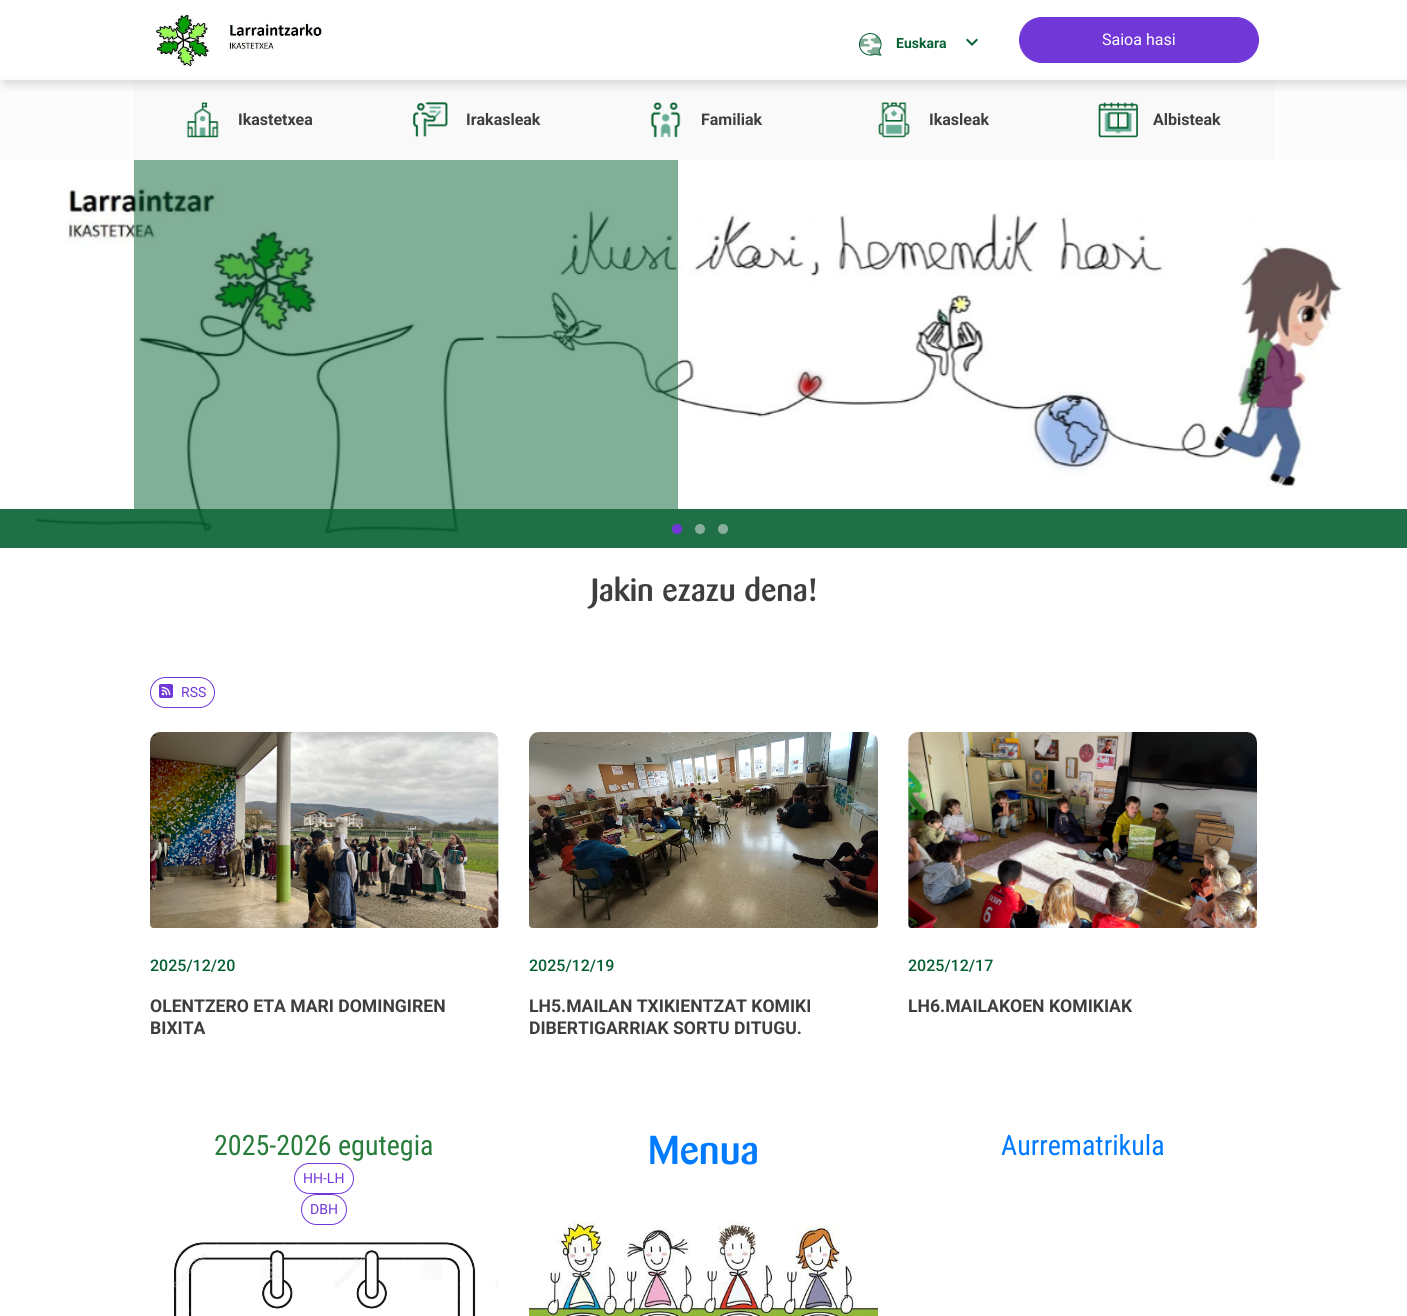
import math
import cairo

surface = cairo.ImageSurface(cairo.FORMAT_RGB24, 1407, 1316)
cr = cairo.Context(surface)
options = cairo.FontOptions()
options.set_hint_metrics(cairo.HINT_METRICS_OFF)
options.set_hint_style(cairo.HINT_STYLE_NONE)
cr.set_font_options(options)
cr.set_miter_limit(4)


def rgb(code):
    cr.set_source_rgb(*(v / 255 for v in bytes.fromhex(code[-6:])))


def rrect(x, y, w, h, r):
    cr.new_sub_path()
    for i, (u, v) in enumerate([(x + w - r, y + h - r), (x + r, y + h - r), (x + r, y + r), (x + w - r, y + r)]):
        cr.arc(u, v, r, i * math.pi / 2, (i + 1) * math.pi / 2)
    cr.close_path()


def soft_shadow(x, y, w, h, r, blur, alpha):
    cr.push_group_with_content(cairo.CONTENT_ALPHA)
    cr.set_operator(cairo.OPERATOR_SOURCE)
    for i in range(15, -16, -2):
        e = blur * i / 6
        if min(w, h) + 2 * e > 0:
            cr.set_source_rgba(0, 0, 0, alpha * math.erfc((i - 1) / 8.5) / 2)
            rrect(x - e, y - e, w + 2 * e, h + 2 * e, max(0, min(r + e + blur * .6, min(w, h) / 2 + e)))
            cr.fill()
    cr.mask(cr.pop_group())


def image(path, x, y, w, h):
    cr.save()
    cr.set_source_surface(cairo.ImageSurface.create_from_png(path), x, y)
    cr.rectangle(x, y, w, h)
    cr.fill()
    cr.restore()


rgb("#ffffff")
cr.paint()
rgb("#e0e0e0")
soft_shadow(0, 85, 1407, 80, 0, 5, 1)
rgb("#fcfcfc")
cr.rectangle(0, 80, 1407, 80)
cr.fill()
rgb("#f9f9f9")
cr.rectangle(134, 80, 1140, 80)
cr.fill()
cr.save()
cr.rectangle(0, 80, 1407, 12)
cr.clip()
rgb("#a0a0a0")
soft_shadow(4, 4, 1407, 80, 0, 5, 0.4)
cr.restore()
image("img/1.png", 155, 14, 169, 53)
image("img/2.png", 859, 33, 23, 23)
image("img/3.png", 966, 38, 12, 8)
rgb("#7138d7")
rrect(1019.5, 17.5, 239, 45, 22.5)
cr.fill_preserve()
cr.set_line_width(1)
cr.stroke()
image("img/4.png", 186, 102, 33, 36)
image("img/5.png", 413, 102, 35, 35)
image("img/6.png", 650, 102, 31, 36)
image("img/7.png", 878, 102, 32, 36)
image("img/8.png", 1098, 102, 40, 36)
image("img/9.png", 0, 160, 1407, 373)
cr.set_source_rgba(0.027, 0.376, 0.2, 0.5)
cr.rectangle(134, 160, 544, 349)
cr.fill()
cr.set_source_rgba(0.027, 0.376, 0.2, 0.9)
cr.rectangle(0, 509, 1407, 39)
cr.fill()
rgb("#7138d7")
cr.arc(677, 529, 5, 0, 2 * math.pi)
cr.fill()
rgb("#86ae9a")
cr.arc(700, 529, 5, 0, 2 * math.pi)
cr.fill()
cr.arc(723, 529, 5, 0, 2 * math.pi)
cr.fill()
rrect(150.5, 677.5, 64, 30, 15)
rgb("#7138d7")
cr.stroke()
image("img/10.png", 159, 684, 14, 14)
image("img/11.png", 150, 732, 349, 196)
image("img/12.png", 529, 732, 349, 196)
image("img/13.png", 908, 732, 349, 196)
rrect(294.5, 1163.5, 59, 30, 15)
cr.stroke()
rrect(301.5, 1194.5, 45, 30, 15)
cr.stroke()
image("img/14.png", 173, 1242, 326, 74)
image("img/15.png", 529, 1221, 349, 95)
cr.select_font_face("Roboto", cairo.FONT_SLANT_NORMAL, cairo.FONT_WEIGHT_BOLD)
cr.set_font_size(14)
rgb("#076033")
cr.move_to(896, 48)
cr.show_text("Euskara")
cr.select_font_face("Roboto")
cr.set_font_size(16)
rgb("#ffffff")
cr.move_to(1102, 45)
cr.show_text("Saioa hasi")
cr.select_font_face("Roboto", cairo.FONT_SLANT_NORMAL, cairo.FONT_WEIGHT_BOLD)
rgb("#3e3e40")
for x, y, s in [
    (238, 125, "Ikastetxea"),
    (466, 125, "Irakasleak"),
    (701, 125, "Familiak"),
    (929, 125, "Ikasleak"),
    (1153, 125, "Albisteak"),
]:
    cr.move_to(x, y)
    cr.show_text(s)
cr.select_font_face("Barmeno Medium")
cr.set_font_size(32)
cr.move_to(591, 601)
cr.show_text("Jakin ezazu dena!")
cr.select_font_face("Roboto")
cr.set_font_size(14)
rgb("#7138d7")
cr.move_to(181, 697)
cr.show_text("RSS")
cr.select_font_face("Roboto Medium")
cr.set_font_size(16)
rgb("#076033")
cr.move_to(150, 971)
cr.show_text("2025/12/20")
cr.select_font_face("Roboto", cairo.FONT_SLANT_NORMAL, cairo.FONT_WEIGHT_BOLD)
cr.set_font_size(17.6)
rgb("#3e3e40")
cr.move_to(150, 1012)
cr.show_text("OLENTZERO ETA MARI DOMINGIREN")
cr.move_to(150, 1034)
cr.show_text("BIXITA")
cr.select_font_face("Roboto Medium")
cr.set_font_size(16)
rgb("#076033")
cr.move_to(529, 971)
cr.show_text("2025/12/19")
cr.select_font_face("Roboto", cairo.FONT_SLANT_NORMAL, cairo.FONT_WEIGHT_BOLD)
cr.set_font_size(17.6)
rgb("#3e3e40")
cr.move_to(529, 1012)
cr.show_text("LH5.MAILAN TXIKIENTZAT KOMIKI")
cr.move_to(529, 1034)
cr.show_text("DIBERTIGARRIAK SORTU DITUGU.")
cr.select_font_face("Roboto Medium")
cr.set_font_size(16)
rgb("#076033")
cr.move_to(908, 971)
cr.show_text("2025/12/17")
cr.select_font_face("Roboto", cairo.FONT_SLANT_NORMAL, cairo.FONT_WEIGHT_BOLD)
cr.set_font_size(17.6)
rgb("#3e3e40")
cr.move_to(908, 1012)
cr.show_text("LH6.MAILAKOEN KOMIKIAK")
cr.select_font_face("Roboto Condensed")
cr.set_font_size(28)
rgb("#287d3c")
cr.move_to(214, 1155)
cr.show_text("2025-2026 egutegia")
cr.select_font_face("Roboto")
cr.set_font_size(14)
rgb("#7138d7")
cr.move_to(303, 1183)
cr.show_text("HH-LH")
cr.move_to(310, 1214)
cr.show_text("DBH")
cr.select_font_face("Barmeno Medium")
cr.set_font_size(40)
rgb("#007bff")
cr.move_to(648, 1164)
cr.show_text("Menua")
cr.select_font_face("Roboto Condensed")
cr.set_font_size(28)
cr.move_to(1001, 1155)
cr.show_text("Aurrematrikula")
surface.write_to_png("page.png")
